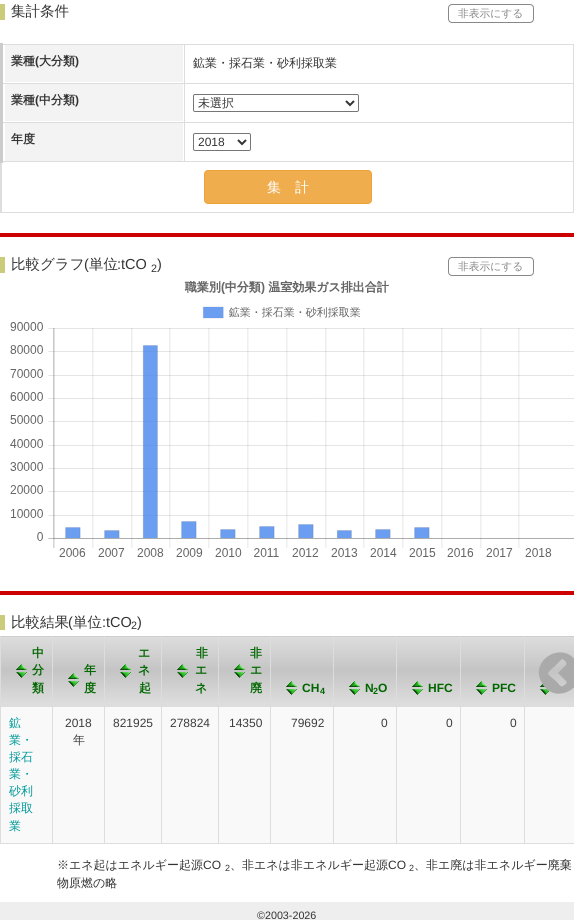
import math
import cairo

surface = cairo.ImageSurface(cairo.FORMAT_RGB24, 574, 920)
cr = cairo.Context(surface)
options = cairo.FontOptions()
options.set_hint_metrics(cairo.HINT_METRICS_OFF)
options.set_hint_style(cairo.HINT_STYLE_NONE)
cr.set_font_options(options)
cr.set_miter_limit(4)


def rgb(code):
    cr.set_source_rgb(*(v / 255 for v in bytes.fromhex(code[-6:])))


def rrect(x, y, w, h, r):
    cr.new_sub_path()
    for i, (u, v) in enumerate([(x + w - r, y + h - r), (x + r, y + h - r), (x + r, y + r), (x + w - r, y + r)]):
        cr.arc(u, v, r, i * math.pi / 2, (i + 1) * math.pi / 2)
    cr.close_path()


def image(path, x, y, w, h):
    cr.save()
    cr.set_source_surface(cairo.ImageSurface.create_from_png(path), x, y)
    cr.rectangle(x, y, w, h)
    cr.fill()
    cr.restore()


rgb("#ffffff")
cr.paint()
rgb("#cbcb7c")
cr.rectangle(0, 4, 5, 16)
cr.fill()
rrect(448.5, 4.5, 85, 18, 3.5)
rgb("#888888")
cr.set_line_width(1)
cr.stroke()
for x, y, w, h, color in [
    (0, 44, 574, 1, "#dddddd"),
    (573, 44, 1, 169, "#dddddd"),
    (0, 212, 574, 1, "#dddddd"),
    (0, 163, 1, 50, "#dddddd"),
    (5, 45, 178, 37, "#f3f3f3"),
    (184, 83, 390, 1, "#dddddd"),
    (184, 122, 390, 1, "#dddddd"),
    (1, 161, 573, 1, "#dddddd"),
    (184, 122, 1, 40, "#dddddd"),
    (1, 122, 184, 1, "#dddddd"),
    (184, 83, 1, 40, "#dddddd"),
    (1, 83, 184, 1, "#dddddd"),
    (184, 44, 1, 40, "#dddddd"),
    (5, 84, 178, 37, "#f3f3f3"),
]:
    rgb(color)
    cr.rectangle(x, y, w, h)
    cr.fill()
rrect(193.5, 94.5, 165, 17, 1.5)
rgb("#767676")
cr.stroke()
cr.new_path()
cr.move_to(346, 101)
cr.line_to(350, 105)
cr.line_to(354, 101)
rgb("#333333")
cr.set_line_width(2)
cr.stroke()
for x, y, w, h, color in [
    (5, 123, 178, 38, "#f3f3f3"),
    (1, 161, 1, 52, "#dddddd"),
    (0, 43, 3, 120, "#cccccc"),
]:
    rgb(color)
    cr.rectangle(x, y, w, h)
    cr.fill()
rrect(193.5, 133.5, 57, 17, 1.5)
rgb("#767676")
cr.set_line_width(1)
cr.stroke()
cr.new_path()
cr.move_to(238, 140)
cr.line_to(242, 144)
cr.line_to(246, 140)
rgb("#333333")
cr.set_line_width(2)
cr.stroke()
rgb("#f0ad4e")
rrect(204.5, 170.5, 167, 33, 3.5)
cr.fill_preserve()
rgb("#eea236")
cr.set_line_width(1)
cr.stroke()
rgb("#cc0000")
cr.rectangle(0, 233, 574, 4)
cr.fill()
rgb("#cbcb7c")
cr.rectangle(0, 257, 5, 16)
cr.fill()
rrect(448.5, 257.5, 85, 18, 3.5)
rgb("#888888")
cr.stroke()
image("img/1.png", 10, 280, 564, 277)
for x, y, w, h, color in [
    (0, 591, 574, 4, "#cc0000"),
    (0, 615, 5, 15, "#cbcb7c"),
    (0, 636, 574, 1, "#cdcdcd"),
]:
    rgb(color)
    cr.rectangle(x, y, w, h)
    cr.fill()
gradient = cairo.LinearGradient(555, 637, 555, 704)
gradient.add_color_stop_rgba(0, 0.867, 0.867, 0.867, 1)
gradient.add_color_stop_rgba(0.5, 0.769, 0.769, 0.769, 1)
gradient.add_color_stop_rgba(1, 0.867, 0.867, 0.867, 1)
cr.set_source(gradient)
cr.rectangle(525, 637, 49, 67)
cr.fill()
gradient = cairo.LinearGradient(555, 704, 555, 771)
gradient.add_color_stop_rgba(0, 0.867, 0.867, 0.867, 1)
gradient.add_color_stop_rgba(0.5, 0.769, 0.769, 0.769, 1)
gradient.add_color_stop_rgba(1, 0.867, 0.867, 0.867, 1)
cr.set_source(gradient)
cr.rectangle(525, 704, 49, 1)
cr.fill()
rgb("#dddddd")
cr.rectangle(524, 843, 50, 1)
cr.fill()
gradient = cairo.LinearGradient(493, 704, 493, 771)
gradient.add_color_stop_rgba(0, 0.867, 0.867, 0.867, 1)
gradient.add_color_stop_rgba(0.5, 0.769, 0.769, 0.769, 1)
gradient.add_color_stop_rgba(1, 0.867, 0.867, 0.867, 1)
cr.set_source(gradient)
cr.rectangle(461, 704, 64, 1)
cr.fill()
for x, y, w, h, color in [
    (1, 707, 573, 136, "#f9f9f9"),
    (524, 636, 1, 208, "#dddddd"),
    (460, 843, 65, 1, "#dddddd"),
]:
    rgb(color)
    cr.rectangle(x, y, w, h)
    cr.fill()
gradient = cairo.LinearGradient(429, 704, 429, 771)
gradient.add_color_stop_rgba(0, 0.867, 0.867, 0.867, 1)
gradient.add_color_stop_rgba(0.5, 0.769, 0.769, 0.769, 1)
gradient.add_color_stop_rgba(1, 0.867, 0.867, 0.867, 1)
cr.set_source(gradient)
cr.rectangle(396, 704, 65, 1)
cr.fill()
for x, y, w, h, color in [
    (460, 636, 1, 208, "#dddddd"),
    (396, 843, 65, 1, "#dddddd"),
    (396, 636, 1, 208, "#dddddd"),
    (333, 843, 64, 1, "#dddddd"),
]:
    rgb(color)
    cr.rectangle(x, y, w, h)
    cr.fill()
gradient = cairo.LinearGradient(365, 704, 365, 771)
gradient.add_color_stop_rgba(0, 0.867, 0.867, 0.867, 1)
gradient.add_color_stop_rgba(0.5, 0.769, 0.769, 0.769, 1)
gradient.add_color_stop_rgba(1, 0.867, 0.867, 0.867, 1)
cr.set_source(gradient)
cr.rectangle(333, 704, 63, 1)
cr.fill()
rgb("#dddddd")
cr.rectangle(333, 636, 1, 208)
cr.fill()
cr.rectangle(270, 843, 64, 1)
cr.fill()
gradient = cairo.LinearGradient(245, 704, 245, 771)
gradient.add_color_stop_rgba(0, 0.867, 0.867, 0.867, 1)
gradient.add_color_stop_rgba(0.5, 0.769, 0.769, 0.769, 1)
gradient.add_color_stop_rgba(1, 0.867, 0.867, 0.867, 1)
cr.set_source(gradient)
cr.rectangle(219, 704, 52, 1)
cr.fill()
rgb("#dddddd")
cr.rectangle(270, 636, 1, 208)
cr.fill()
cr.rectangle(218, 843, 53, 1)
cr.fill()
gradient = cairo.LinearGradient(191, 704, 191, 771)
gradient.add_color_stop_rgba(0, 0.867, 0.867, 0.867, 1)
gradient.add_color_stop_rgba(0.5, 0.769, 0.769, 0.769, 1)
gradient.add_color_stop_rgba(1, 0.867, 0.867, 0.867, 1)
cr.set_source(gradient)
cr.rectangle(162, 704, 57, 1)
cr.fill()
rgb("#dddddd")
cr.rectangle(218, 636, 1, 208)
cr.fill()
cr.rectangle(161, 843, 58, 1)
cr.fill()
gradient = cairo.LinearGradient(134, 704, 134, 771)
gradient.add_color_stop_rgba(0, 0.867, 0.867, 0.867, 1)
gradient.add_color_stop_rgba(0.5, 0.769, 0.769, 0.769, 1)
gradient.add_color_stop_rgba(1, 0.867, 0.867, 0.867, 1)
cr.set_source(gradient)
cr.rectangle(105, 704, 57, 1)
cr.fill()
rgb("#dddddd")
cr.rectangle(161, 636, 1, 208)
cr.fill()
cr.rectangle(104, 843, 58, 1)
cr.fill()
gradient = cairo.LinearGradient(79, 704, 79, 771)
gradient.add_color_stop_rgba(0, 0.867, 0.867, 0.867, 1)
gradient.add_color_stop_rgba(0.5, 0.769, 0.769, 0.769, 1)
gradient.add_color_stop_rgba(1, 0.867, 0.867, 0.867, 1)
cr.set_source(gradient)
cr.rectangle(53, 704, 52, 1)
cr.fill()
rgb("#dddddd")
cr.rectangle(104, 636, 1, 208)
cr.fill()
cr.rectangle(52, 843, 53, 1)
cr.fill()
gradient = cairo.LinearGradient(27, 704, 27, 771)
gradient.add_color_stop_rgba(0, 0.867, 0.867, 0.867, 1)
gradient.add_color_stop_rgba(0.5, 0.769, 0.769, 0.769, 1)
gradient.add_color_stop_rgba(1, 0.867, 0.867, 0.867, 1)
cr.set_source(gradient)
cr.rectangle(1, 704, 52, 1)
cr.fill()
for x, y, w, h, color in [
    (52, 636, 1, 208, "#dddddd"),
    (0, 843, 53, 1, "#dddddd"),
    (0, 636, 1, 208, "#dddddd"),
    (0, 705, 574, 2, "#dddddd"),
]:
    rgb(color)
    cr.rectangle(x, y, w, h)
    cr.fill()
image("img/2.png", 540, 684, 10, 11)
gradient = cairo.LinearGradient(27, 637, 27, 704)
gradient.add_color_stop_rgba(0, 0.867, 0.867, 0.867, 1)
gradient.add_color_stop_rgba(0.5, 0.769, 0.769, 0.769, 1)
gradient.add_color_stop_rgba(1, 0.867, 0.867, 0.867, 1)
cr.set_source(gradient)
cr.rectangle(1, 637, 51, 67)
cr.fill()
image("img/3.png", 16, 664, 11, 14)
gradient = cairo.LinearGradient(79, 637, 79, 704)
gradient.add_color_stop_rgba(0, 0.867, 0.867, 0.867, 1)
gradient.add_color_stop_rgba(0.5, 0.769, 0.769, 0.769, 1)
gradient.add_color_stop_rgba(1, 0.867, 0.867, 0.867, 1)
cr.set_source(gradient)
cr.rectangle(53, 637, 51, 67)
cr.fill()
image("img/4.png", 68, 673, 11, 14)
gradient = cairo.LinearGradient(134, 637, 134, 704)
gradient.add_color_stop_rgba(0, 0.867, 0.867, 0.867, 1)
gradient.add_color_stop_rgba(0.5, 0.769, 0.769, 0.769, 1)
gradient.add_color_stop_rgba(1, 0.867, 0.867, 0.867, 1)
cr.set_source(gradient)
cr.rectangle(105, 637, 56, 67)
cr.fill()
image("img/3.png", 120, 664, 11, 14)
gradient = cairo.LinearGradient(191, 637, 191, 704)
gradient.add_color_stop_rgba(0, 0.867, 0.867, 0.867, 1)
gradient.add_color_stop_rgba(0.5, 0.769, 0.769, 0.769, 1)
gradient.add_color_stop_rgba(1, 0.867, 0.867, 0.867, 1)
cr.set_source(gradient)
cr.rectangle(162, 637, 56, 67)
cr.fill()
image("img/3.png", 177, 664, 11, 14)
gradient = cairo.LinearGradient(245, 637, 245, 704)
gradient.add_color_stop_rgba(0, 0.867, 0.867, 0.867, 1)
gradient.add_color_stop_rgba(0.5, 0.769, 0.769, 0.769, 1)
gradient.add_color_stop_rgba(1, 0.867, 0.867, 0.867, 1)
cr.set_source(gradient)
cr.rectangle(219, 637, 51, 67)
cr.fill()
image("img/3.png", 234, 664, 11, 14)
gradient = cairo.LinearGradient(302, 637, 302, 704)
gradient.add_color_stop_rgba(0, 0.867, 0.867, 0.867, 1)
gradient.add_color_stop_rgba(0.5, 0.769, 0.769, 0.769, 1)
gradient.add_color_stop_rgba(1, 0.867, 0.867, 0.867, 1)
cr.set_source(gradient)
cr.rectangle(271, 637, 62, 67)
cr.fill()
gradient = cairo.LinearGradient(302, 704, 302, 771)
gradient.add_color_stop_rgba(0, 0.867, 0.867, 0.867, 1)
gradient.add_color_stop_rgba(0.5, 0.769, 0.769, 0.769, 1)
gradient.add_color_stop_rgba(1, 0.867, 0.867, 0.867, 1)
cr.set_source(gradient)
cr.rectangle(271, 704, 62, 1)
cr.fill()
image("img/5.png", 286, 681, 11, 14)
gradient = cairo.LinearGradient(365, 637, 365, 704)
gradient.add_color_stop_rgba(0, 0.867, 0.867, 0.867, 1)
gradient.add_color_stop_rgba(0.5, 0.769, 0.769, 0.769, 1)
gradient.add_color_stop_rgba(1, 0.867, 0.867, 0.867, 1)
cr.set_source(gradient)
cr.rectangle(334, 637, 62, 67)
cr.fill()
image("img/5.png", 349, 681, 11, 14)
gradient = cairo.LinearGradient(429, 637, 429, 704)
gradient.add_color_stop_rgba(0, 0.867, 0.867, 0.867, 1)
gradient.add_color_stop_rgba(0.5, 0.769, 0.769, 0.769, 1)
gradient.add_color_stop_rgba(1, 0.867, 0.867, 0.867, 1)
cr.set_source(gradient)
cr.rectangle(397, 637, 63, 67)
cr.fill()
image("img/5.png", 412, 681, 11, 14)
gradient = cairo.LinearGradient(493, 637, 493, 704)
gradient.add_color_stop_rgba(0, 0.867, 0.867, 0.867, 1)
gradient.add_color_stop_rgba(0.5, 0.769, 0.769, 0.769, 1)
gradient.add_color_stop_rgba(1, 0.867, 0.867, 0.867, 1)
cr.set_source(gradient)
cr.rectangle(461, 637, 63, 67)
cr.fill()
image("img/5.png", 476, 681, 11, 14)
rgb("#aaaaaa")
cr.new_path()
cr.move_to(563, 686)
cr.curve_to(567, 683, 568, 683, 565, 680)
cr.line_to(558, 673)
cr.line_to(566, 665)
cr.curve_to(567, 663, 566, 662, 565, 661)
cr.curve_to(562, 658, 562, 659, 559, 662)
cr.line_to(555, 666)
cr.curve_to(545, 675, 546, 672, 557, 682)
cr.curve_to(558, 683, 561, 688, 563, 686)
cr.close_path()
cr.move_to(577, 663)
cr.curve_to(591, 686, 555, 707, 542, 683)
cr.curve_to(528, 660, 564, 639, 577, 663)
cr.close_path()
cr.fill()
rgb("#eeeeee")
cr.rectangle(0, 902, 574, 18)
cr.fill()
cr.select_font_face("WenQuanYi Zen Hei Medium")
cr.set_font_size(14.5)
rgb("#333333")
cr.move_to(11, 16)
cr.show_text("集計条件")
cr.set_font_size(10.75)
rgb("#888888")
cr.move_to(458, 17)
cr.show_text("非表示にする")
cr.select_font_face("WenQuanYi Zen Hei", cairo.FONT_SLANT_NORMAL, cairo.FONT_WEIGHT_BOLD)
cr.set_font_size(12)
rgb("#333333")
cr.move_to(11, 65)
cr.show_text("業種")
cr.select_font_face("Liberation Sans", cairo.FONT_SLANT_NORMAL, cairo.FONT_WEIGHT_BOLD)
cr.move_to(35, 65)
cr.show_text("(")
cr.select_font_face("WenQuanYi Zen Hei", cairo.FONT_SLANT_NORMAL, cairo.FONT_WEIGHT_BOLD)
cr.move_to(39, 65)
cr.show_text("大分類")
cr.select_font_face("Liberation Sans", cairo.FONT_SLANT_NORMAL, cairo.FONT_WEIGHT_BOLD)
cr.move_to(75, 65)
cr.show_text(")")
cr.select_font_face("WenQuanYi Zen Hei Medium")
cr.move_to(193, 67)
cr.show_text("鉱業・採石業・砂利採取業")
cr.select_font_face("WenQuanYi Zen Hei", cairo.FONT_SLANT_NORMAL, cairo.FONT_WEIGHT_BOLD)
cr.move_to(11, 104)
cr.show_text("業種")
cr.select_font_face("Liberation Sans", cairo.FONT_SLANT_NORMAL, cairo.FONT_WEIGHT_BOLD)
cr.move_to(35, 104)
cr.show_text("(")
cr.select_font_face("WenQuanYi Zen Hei", cairo.FONT_SLANT_NORMAL, cairo.FONT_WEIGHT_BOLD)
cr.move_to(39, 104)
cr.show_text("中分類")
cr.select_font_face("Liberation Sans", cairo.FONT_SLANT_NORMAL, cairo.FONT_WEIGHT_BOLD)
cr.move_to(75, 104)
cr.show_text(")")
cr.select_font_face("WenQuanYi Zen Hei Medium")
cr.move_to(198, 107)
cr.show_text("未選択")
cr.select_font_face("WenQuanYi Zen Hei", cairo.FONT_SLANT_NORMAL, cairo.FONT_WEIGHT_BOLD)
cr.move_to(11, 143)
cr.show_text("年度")
cr.select_font_face("Liberation Sans")
cr.move_to(198, 146)
cr.show_text("2018")
cr.select_font_face("WenQuanYi Zen Hei Medium")
cr.set_font_size(14)
rgb("#ffffff")
cr.move_to(267, 192)
cr.show_text("集　計")
cr.set_font_size(14.5)
rgb("#333333")
cr.move_to(11, 269)
cr.show_text("比較グラフ")
cr.select_font_face("Liberation Sans")
cr.move_to(84, 269)
cr.show_text("(")
cr.select_font_face("WenQuanYi Zen Hei Medium")
cr.move_to(89, 269)
cr.show_text("単位")
cr.select_font_face("Liberation Sans")
cr.move_to(117, 269)
cr.show_text(":tCO")
cr.move_to(157, 269)
cr.show_text(")")
cr.set_font_size(10.75)
cr.move_to(151, 272)
cr.show_text("2")
cr.select_font_face("WenQuanYi Zen Hei Medium")
rgb("#888888")
cr.move_to(458, 270)
cr.show_text("非表示にする")
cr.set_font_size(14.5)
rgb("#333333")
cr.move_to(11, 627)
cr.show_text("比較結果")
cr.select_font_face("Liberation Sans")
cr.move_to(68, 627)
cr.show_text("(")
cr.select_font_face("WenQuanYi Zen Hei Medium")
cr.move_to(73, 627)
cr.show_text("単位")
cr.select_font_face("Liberation Sans")
cr.move_to(102, 627)
cr.show_text(":tCO")
cr.set_font_size(10.75)
cr.move_to(131, 629)
cr.show_text("2")
cr.set_font_size(14.5)
cr.move_to(137, 627)
cr.show_text(")")
cr.select_font_face("WenQuanYi Zen Hei", cairo.FONT_SLANT_NORMAL, cairo.FONT_WEIGHT_BOLD)
cr.set_font_size(12)
rgb("#006600")
for x, y, s in [
    (32, 657, "中"),
    (32, 674, "分"),
    (32, 692, "類"),
    (84, 674, "年"),
    (84, 692, "度"),
    (138, 657, "エ"),
    (138, 674, "ネ"),
    (139, 692, "起"),
    (196, 657, "非"),
    (195, 674, "エ"),
    (195, 692, "ネ"),
    (250, 657, "非"),
    (250, 674, "エ"),
    (250, 692, "廃"),
]:
    cr.move_to(x, y)
    cr.show_text(s)
cr.select_font_face("Liberation Sans", cairo.FONT_SLANT_NORMAL, cairo.FONT_WEIGHT_BOLD)
cr.move_to(302, 692)
cr.show_text("CH")
cr.set_font_size(9)
cr.move_to(320, 694)
cr.show_text("4")
cr.set_font_size(12)
cr.move_to(365, 692)
cr.show_text("N")
cr.move_to(378, 692)
cr.show_text("O")
cr.set_font_size(9)
cr.move_to(373, 694)
cr.show_text("2")
cr.set_font_size(12)
cr.move_to(428, 692)
cr.show_text("HFC")
cr.move_to(492, 692)
cr.show_text("PFC")
cr.select_font_face("WenQuanYi Zen Hei Medium")
rgb("#009999")
for x, y, s in [
    (9, 727, "鉱"),
    (9, 744, "業・"),
    (9, 761, "採石"),
    (9, 778, "業・"),
    (9, 795, "砂利"),
    (9, 812, "採取"),
    (9, 830, "業"),
]:
    cr.move_to(x, y)
    cr.show_text(s)
cr.select_font_face("Liberation Sans")
rgb("#3d3d3d")
cr.move_to(65, 727)
cr.show_text("2018")
cr.select_font_face("WenQuanYi Zen Hei Medium")
cr.move_to(73, 744)
cr.show_text("年")
cr.select_font_face("Liberation Sans")
for x, y, s in [
    (113, 727, "821925"),
    (170, 727, "278824"),
    (229, 727, "14350"),
    (291, 727, "79692"),
    (381, 727, "0"),
    (446, 727, "0"),
    (510, 727, "0"),
]:
    cr.move_to(x, y)
    cr.show_text(s)
cr.select_font_face("WenQuanYi Zen Hei Medium")
rgb("#333333")
cr.move_to(57, 869)
cr.show_text("※エネ起はエネルギー起源")
cr.select_font_face("Liberation Sans")
cr.move_to(203, 869)
cr.show_text("CO")
cr.set_font_size(9)
cr.move_to(225, 871)
cr.show_text("2")
cr.select_font_face("WenQuanYi Zen Hei Medium")
cr.set_font_size(12)
cr.move_to(230, 869)
cr.show_text("、非エネは非エネルギー起源")
cr.select_font_face("Liberation Sans")
cr.move_to(388, 869)
cr.show_text("CO")
cr.set_font_size(9)
cr.move_to(409, 871)
cr.show_text("2")
cr.select_font_face("WenQuanYi Zen Hei Medium")
cr.set_font_size(12)
cr.move_to(414, 869)
cr.show_text("、非エ廃は非エネルギー廃棄")
cr.move_to(57, 887)
cr.show_text("物原燃の略")
cr.select_font_face("Liberation Sans")
cr.set_font_size(10.75)
cr.move_to(257, 919)
cr.show_text("©2003-2026")
surface.write_to_png("page.png")
